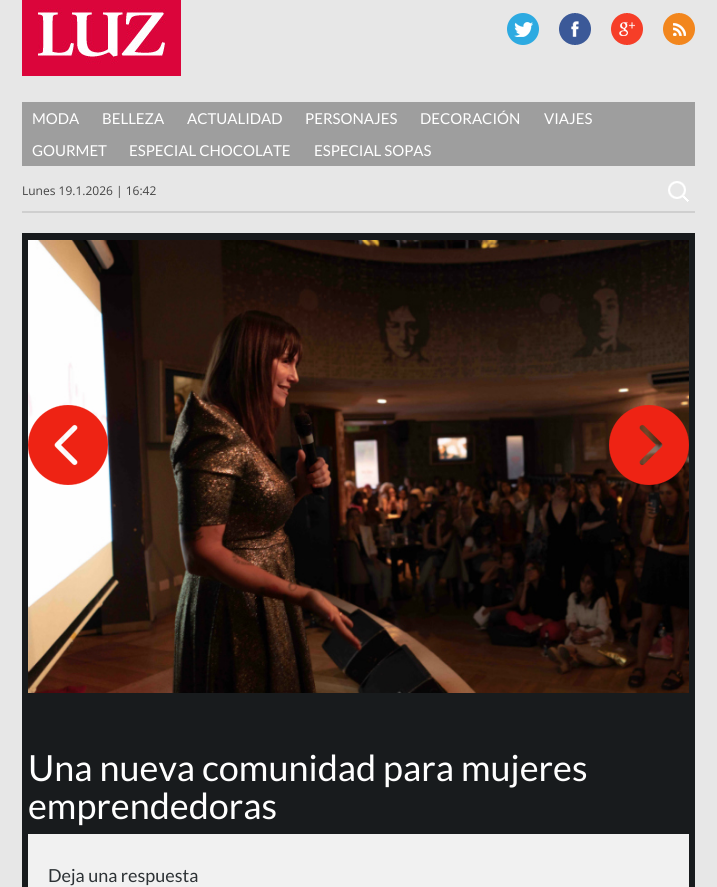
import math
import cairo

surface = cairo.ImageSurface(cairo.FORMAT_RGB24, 717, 887)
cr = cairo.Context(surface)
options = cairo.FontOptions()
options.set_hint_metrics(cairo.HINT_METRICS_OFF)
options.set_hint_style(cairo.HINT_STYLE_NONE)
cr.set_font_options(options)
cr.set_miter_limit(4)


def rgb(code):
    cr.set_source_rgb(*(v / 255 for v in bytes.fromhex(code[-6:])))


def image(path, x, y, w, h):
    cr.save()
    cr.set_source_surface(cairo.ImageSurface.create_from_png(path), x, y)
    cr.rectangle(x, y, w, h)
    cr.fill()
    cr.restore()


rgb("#e7e7e7")
cr.paint()
image("img/1.png", 22, 0, 159, 76)
image("img/2.png", 507, 13, 32, 32)
image("img/3.png", 559, 13, 32, 32)
image("img/4.png", 611, 13, 32, 32)
image("img/5.png", 663, 13, 32, 32)
rgb("#9e9e9e")
cr.rectangle(22, 102, 673, 64)
cr.fill()
rgb("#cfcfcf")
cr.rectangle(22, 211, 673, 2)
cr.fill()
image("img/6.png", 668, 181, 21, 21)
rgb("#181b1d")
cr.rectangle(22, 233, 673, 654)
cr.fill()
image("img/7.png", 28, 240, 661, 453)
image("img/8.png", 28, 405, 80, 80)
image("img/9.png", 609, 405, 80, 80)
rgb("#f1f1f1")
cr.rectangle(28, 834, 661, 53)
cr.fill()
cr.select_font_face("Lato")
cr.set_font_size(15)
rgb("#ffffff")
for x, y, s in [
    (32, 124, "MODA"),
    (102, 124, "BELLEZA"),
    (187, 124, "ACTUALIDAD"),
    (305, 124, "PERSONAJES"),
    (420, 124, "DECORACIÓN"),
    (544, 124, "VIAJES"),
    (32, 156, "GOURMET"),
    (129, 156, "ESPECIAL CHOCOLATE"),
    (314, 156, "ESPECIAL SOPAS"),
]:
    cr.move_to(x, y)
    cr.show_text(s)
cr.select_font_face("Open Sans")
cr.set_font_size(12)
rgb("#444444")
cr.move_to(22, 195)
cr.show_text("Lunes 19.1.2026 | 16:42")
cr.select_font_face("Lato")
cr.set_font_size(36)
rgb("#ffffff")
cr.move_to(28, 781)
cr.show_text("Una nueva comunidad para mujeres")
cr.move_to(28, 819)
cr.show_text("emprendedoras")
cr.set_font_size(18)
rgb("#2d3235")
cr.move_to(48, 882)
cr.show_text("Deja una respuesta")
surface.write_to_png("page.png")
